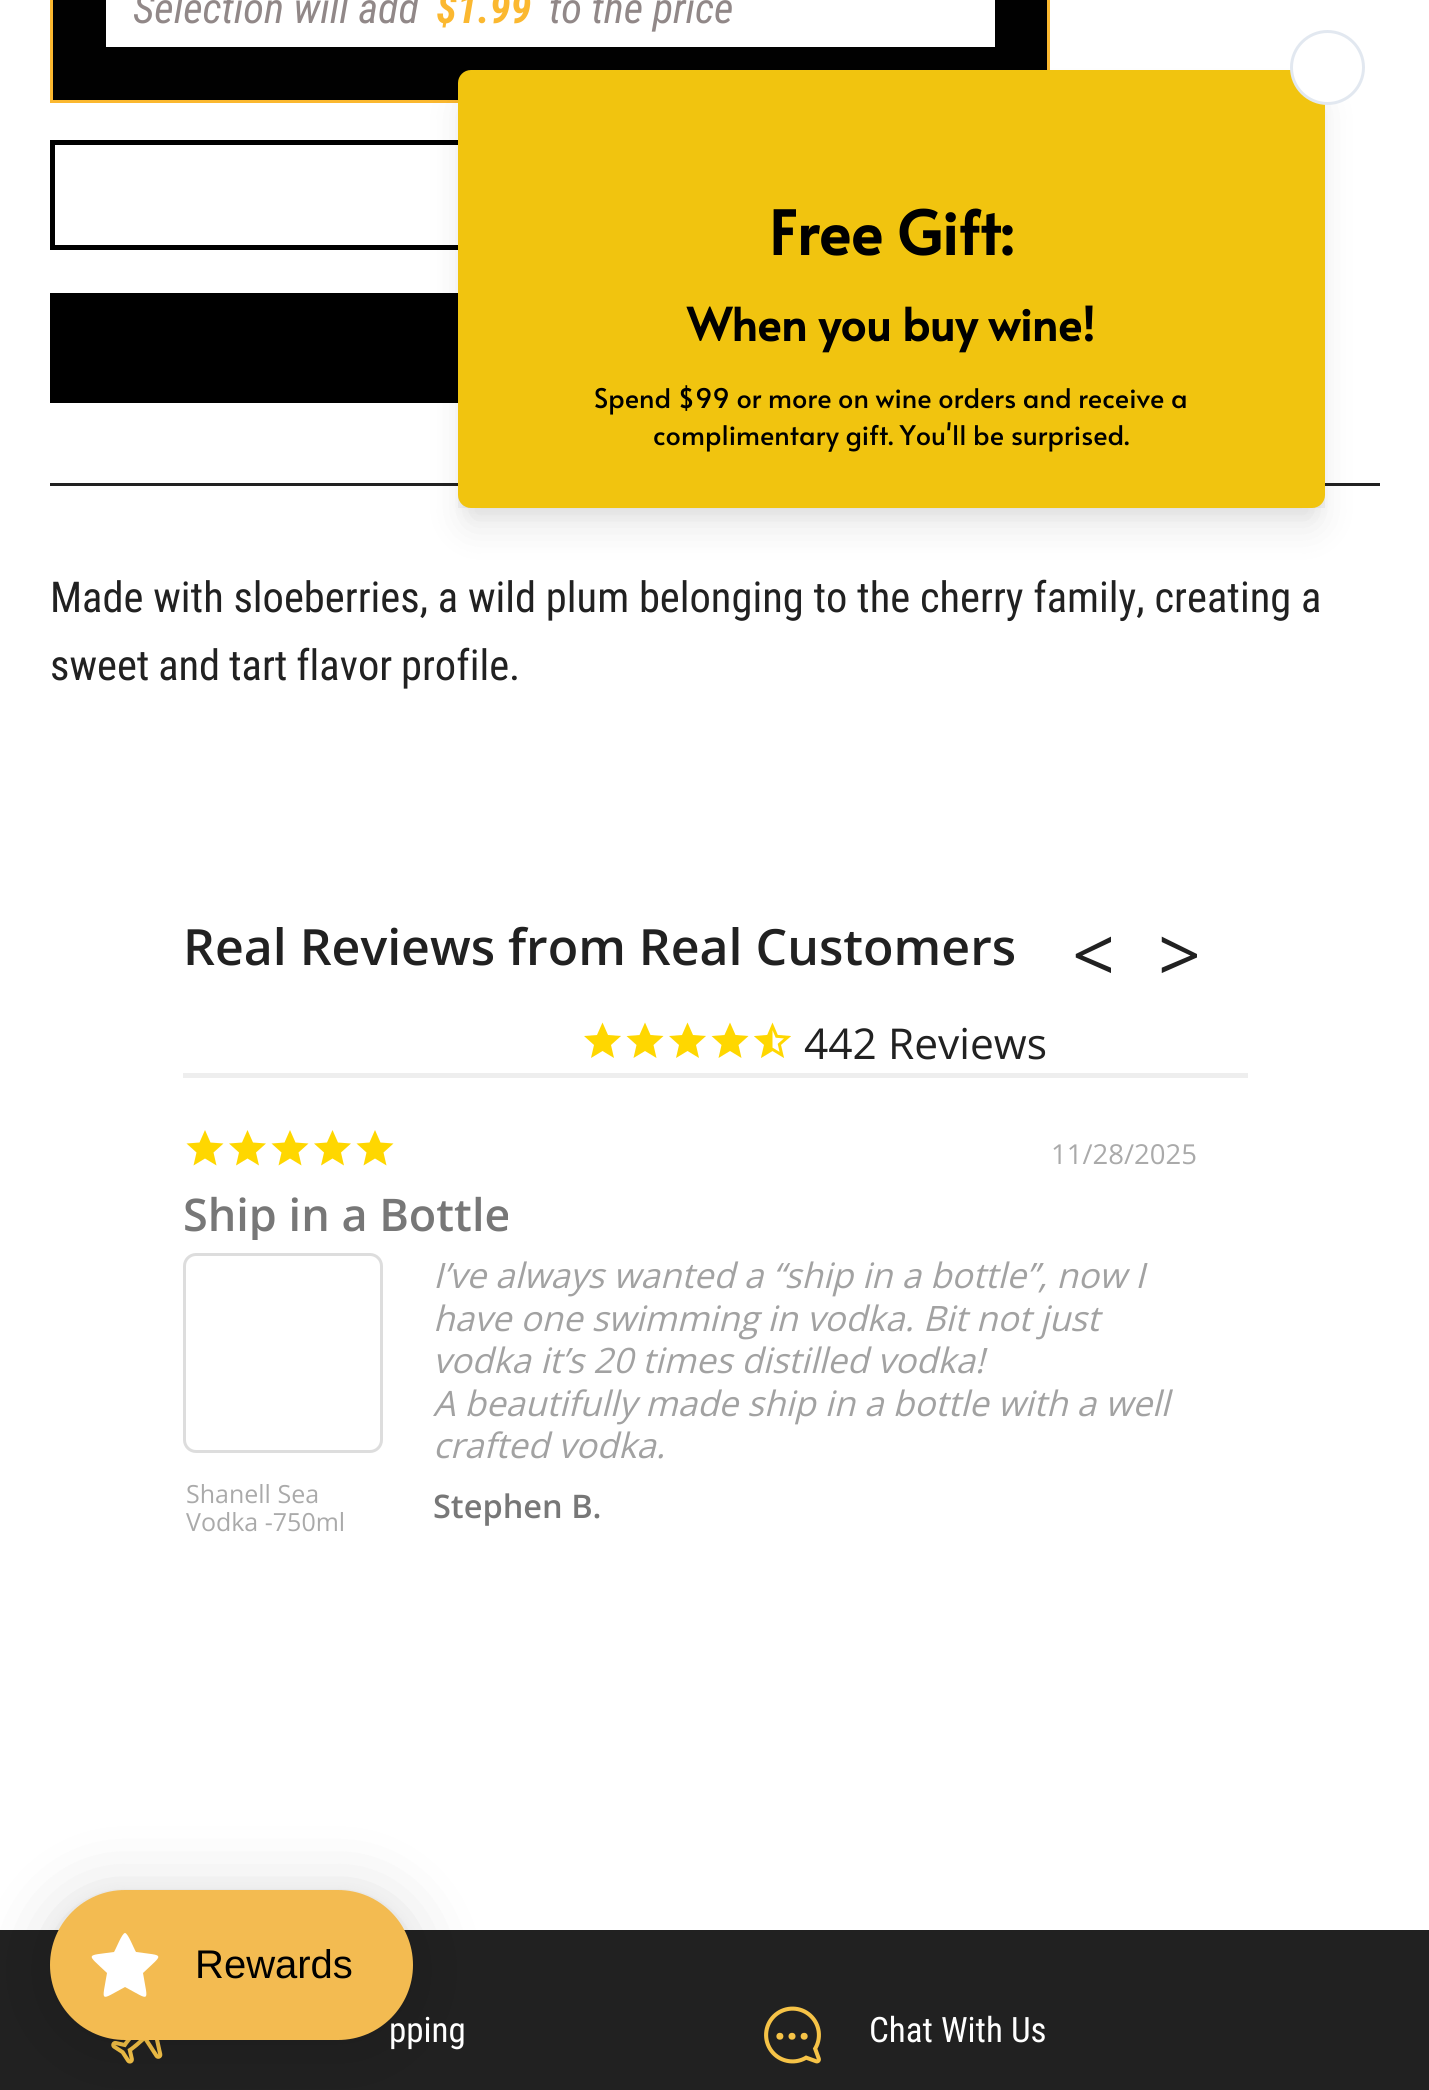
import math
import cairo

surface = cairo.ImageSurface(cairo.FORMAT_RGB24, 1429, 2090)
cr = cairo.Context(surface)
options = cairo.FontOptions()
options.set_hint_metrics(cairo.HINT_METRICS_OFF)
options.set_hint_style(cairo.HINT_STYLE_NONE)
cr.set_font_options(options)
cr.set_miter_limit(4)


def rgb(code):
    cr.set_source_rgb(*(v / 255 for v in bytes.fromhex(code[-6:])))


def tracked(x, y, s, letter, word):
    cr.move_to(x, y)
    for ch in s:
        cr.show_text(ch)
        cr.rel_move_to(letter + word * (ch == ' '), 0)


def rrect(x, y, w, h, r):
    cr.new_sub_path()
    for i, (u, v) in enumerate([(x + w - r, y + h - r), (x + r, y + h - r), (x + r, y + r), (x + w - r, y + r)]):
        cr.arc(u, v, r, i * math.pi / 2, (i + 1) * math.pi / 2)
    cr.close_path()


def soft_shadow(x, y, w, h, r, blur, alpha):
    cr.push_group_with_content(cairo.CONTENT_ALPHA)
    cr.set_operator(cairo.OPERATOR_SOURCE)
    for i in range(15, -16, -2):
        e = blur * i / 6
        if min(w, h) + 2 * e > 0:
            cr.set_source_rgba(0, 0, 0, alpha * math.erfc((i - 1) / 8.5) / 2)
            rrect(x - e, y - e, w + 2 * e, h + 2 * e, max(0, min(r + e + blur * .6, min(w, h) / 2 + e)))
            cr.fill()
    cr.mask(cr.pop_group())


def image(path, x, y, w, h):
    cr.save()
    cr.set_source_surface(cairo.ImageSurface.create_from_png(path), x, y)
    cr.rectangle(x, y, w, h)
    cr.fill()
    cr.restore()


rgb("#ffffff")
cr.paint()
rgb("#010101")
cr.rectangle(51.5, -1.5, 997, 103)
cr.fill_preserve()
rgb("#fbb830")
cr.set_line_width(3)
cr.stroke()
rgb("#ffffff")
cr.rectangle(106, 0, 889, 47)
cr.fill()
cr.rectangle(52.5, 142.5, 995, 105)
rgb("#000000")
cr.set_line_width(5)
cr.stroke()
cr.rectangle(50, 293, 408, 110)
cr.fill()
rgb("#212121")
cr.rectangle(50, 483, 1330, 3)
cr.fill()
rgb("#ffd700")
cr.new_path()
cr.move_to(602.5, 1051)
cr.line_to(591, 1058)
cr.line_to(594, 1045)
cr.line_to(584, 1036)
cr.line_to(597, 1035)
cr.line_to(602.5, 1022.5)
cr.line_to(608, 1035)
cr.line_to(621, 1036)
cr.line_to(611, 1045)
cr.line_to(614, 1058)
cr.close_path()
cr.fill()
cr.new_path()
cr.move_to(645, 1051)
cr.line_to(633.5, 1058)
cr.line_to(636.5, 1045)
cr.line_to(626.5, 1036)
cr.line_to(639.5, 1035)
cr.line_to(645, 1022.5)
cr.line_to(650.5, 1035)
cr.line_to(663.5, 1036)
cr.line_to(653.5, 1045)
cr.line_to(656.5, 1058)
cr.close_path()
cr.fill()
cr.new_path()
cr.move_to(687.5, 1051)
cr.line_to(676, 1058)
cr.line_to(679, 1045)
cr.line_to(669, 1036)
cr.line_to(682, 1035)
cr.line_to(687.5, 1022.5)
cr.line_to(693, 1035)
cr.line_to(706, 1036)
cr.line_to(696, 1045)
cr.line_to(699, 1058)
cr.close_path()
cr.fill()
cr.new_path()
cr.move_to(730, 1051)
cr.line_to(718.5, 1058)
cr.line_to(721.5, 1045)
cr.line_to(711.5, 1036)
cr.line_to(724.5, 1035)
cr.line_to(730, 1022.5)
cr.line_to(735.5, 1035)
cr.line_to(748.5, 1036)
cr.line_to(738.5, 1045)
cr.line_to(741.5, 1058)
cr.close_path()
cr.fill()
image("img/1.png", 754, 1022, 37, 36)
rgb("#eeeeee")
cr.rectangle(183, 1073, 1065, 5)
cr.fill()
rgb("#ffd700")
cr.new_path()
cr.move_to(205, 1158.5)
cr.line_to(193.5, 1165.5)
cr.line_to(196.5, 1152.5)
cr.line_to(186.5, 1143.5)
cr.line_to(199.5, 1142.5)
cr.line_to(205, 1130)
cr.line_to(210.5, 1142.5)
cr.line_to(223.5, 1143.5)
cr.line_to(213.5, 1152.5)
cr.line_to(216.5, 1165.5)
cr.close_path()
cr.fill()
cr.new_path()
cr.move_to(247.5, 1158.5)
cr.line_to(236, 1165.5)
cr.line_to(239, 1152.5)
cr.line_to(229, 1143.5)
cr.line_to(242, 1142.5)
cr.line_to(247.5, 1130)
cr.line_to(253, 1142.5)
cr.line_to(266, 1143.5)
cr.line_to(256, 1152.5)
cr.line_to(259, 1165.5)
cr.close_path()
cr.fill()
cr.new_path()
cr.move_to(290, 1158.5)
cr.line_to(278.5, 1165.5)
cr.line_to(281.5, 1152.5)
cr.line_to(271.5, 1143.5)
cr.line_to(284.5, 1142.5)
cr.line_to(290, 1130)
cr.line_to(295.5, 1142.5)
cr.line_to(308.5, 1143.5)
cr.line_to(298.5, 1152.5)
cr.line_to(301.5, 1165.5)
cr.close_path()
cr.fill()
cr.new_path()
cr.move_to(332.5, 1158.5)
cr.line_to(321, 1165.5)
cr.line_to(324, 1152.5)
cr.line_to(314, 1143.5)
cr.line_to(327, 1142.5)
cr.line_to(332.5, 1130)
cr.line_to(338, 1142.5)
cr.line_to(351, 1143.5)
cr.line_to(341, 1152.5)
cr.line_to(344, 1165.5)
cr.close_path()
cr.fill()
cr.new_path()
cr.move_to(375, 1158.5)
cr.line_to(363.5, 1165.5)
cr.line_to(366.5, 1152.5)
cr.line_to(356.5, 1143.5)
cr.line_to(369.5, 1142.5)
cr.line_to(375, 1130)
cr.line_to(380.5, 1142.5)
cr.line_to(393.5, 1143.5)
cr.line_to(383.5, 1152.5)
cr.line_to(386.5, 1165.5)
cr.close_path()
cr.fill()
rrect(184.5, 1254.5, 197, 197, 11.5)
rgb("#dddddd")
cr.set_line_width(3)
cr.stroke()
rgb("#212121")
cr.rectangle(0, 1930, 1429, 160)
cr.fill()
image("img/2.png", 111, 2040, 52, 24)
image("img/3.png", 764, 2006, 57, 58)
rgb("#000000")
soft_shadow(463, 85, 857, 428, 8, 7.5, 0.05)
soft_shadow(465, 103, 853, 422, 5, 19, 0.1)
cr.save()
cr.rectangle(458, 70, 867, 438)
cr.clip()
soft_shadow(463, 85, 857, 428, 8, 7.5, 0.05)
soft_shadow(465, 78, 853, 422, 5, 25, 0.12)
cr.restore()
rgb("#f1c40f")
rrect(458, 70, 867, 438, 13)
cr.fill()
rgb("#ffffff")
cr.arc(1327.5, 67.5, 36, 0, 2 * math.pi)
cr.fill_preserve()
rgb("#e2e8f0")
cr.stroke()
rgb("#000000")
soft_shadow(50, 1895, 363, 150, 75, 37.5, 0.15)
soft_shadow(50, 1893, 363, 150, 75, 7.5, 0.05)
cr.select_font_face("Roboto Condensed", cairo.FONT_SLANT_ITALIC)
cr.set_font_size(42.5)
rgb("#918888")
cr.move_to(133, 23)
cr.show_text("Selection will add")
cr.select_font_face("Roboto Condensed", cairo.FONT_SLANT_ITALIC, cairo.FONT_WEIGHT_BOLD)
rgb("#fbb830")
cr.move_to(436, 23)
cr.show_text("$1.99")
cr.select_font_face("Roboto Condensed", cairo.FONT_SLANT_ITALIC)
rgb("#918888")
cr.move_to(549, 23)
cr.show_text("to the price")
cr.select_font_face("Roboto Condensed")
rgb("#212121")
cr.move_to(50, 612)
cr.show_text("Made with sloeberries, a wild plum belonging to the cherry family, creating a")
tracked(50, 680, "sweet and tart flavor profile.", 0, -1)
cr.select_font_face("Open Sans SemiBold")
cr.set_font_size(50)
cr.move_to(183, 965)
cr.show_text("Real Reviews from Real Customers")
cr.select_font_face("Open Sans")
cr.set_font_size(75)
cr.move_to(1072, 982)
cr.show_text("<")
cr.move_to(1158, 982)
cr.show_text(">")
cr.set_font_size(42.5)
cr.move_to(804, 1059)
cr.show_text("442 Reviews")
cr.set_font_size(27.5)
rgb("#aaaaaa")
cr.move_to(1051, 1164)
cr.show_text("11/28/2025")
cr.save()
cr.rectangle(183, 1188, 1015, 52)
cr.clip()
cr.select_font_face("Open Sans SemiBold")
cr.set_font_size(45)
rgb("#777777")
cr.move_to(183, 1231)
cr.show_text("Ship in a Bottle")
cr.restore()
cr.select_font_face("Open Sans", cairo.FONT_SLANT_ITALIC)
cr.set_font_size(35)
rgb("#a2a2a2")
for x, y, s in [
    (433, 1288, "I’ve always wanted a “ship in a bottle”, now I"),
    (433, 1331, "have one swimming in vodka. Bit not just"),
    (433, 1373, "vodka it’s 20 times distilled vodka!"),
    (433, 1416, "A beautifully made ship in a bottle with a well"),
    (433, 1458, "crafted vodka."),
]:
    cr.move_to(x, y)
    cr.show_text(s)
cr.select_font_face("Open Sans")
cr.set_font_size(25)
rgb("#aaaaaa")
cr.move_to(186, 1503)
cr.show_text("Shanell Sea")
cr.move_to(186, 1531)
cr.show_text("Vodka -750ml")
cr.select_font_face("Open Sans SemiBold")
cr.set_font_size(32.5)
rgb("#777777")
cr.move_to(433, 1518)
cr.show_text("Stephen B.")
cr.select_font_face("Roboto Condensed")
cr.set_font_size(35)
rgb("#ffffff")
cr.move_to(389, 2042)
cr.show_text("pping")
cr.move_to(869, 2042)
cr.show_text("Chat With Us")
cr.select_font_face("Alata", cairo.FONT_SLANT_NORMAL, cairo.FONT_WEIGHT_BOLD)
cr.set_font_size(60)
rgb("#000000")
cr.move_to(769, 255)
cr.show_text("Free Gift:")
cr.set_font_size(45)
cr.move_to(687, 341)
cr.show_text("When you buy wine!")
cr.select_font_face("Alata")
cr.set_font_size(27)
cr.move_to(594, 408)
cr.show_text("Spend $99 or more on wine orders and receive a")
cr.move_to(653, 445)
cr.show_text("complimentary gift. You'll be surprised.")
rgb("#f3bb51")
rrect(50, 1890, 363, 150, 75)
cr.fill()
rgb("#ffffff")
cr.new_path()
cr.move_to(125, 1933)
cr.curve_to(122, 1933, 116, 1949, 114, 1952)
cr.curve_to(85, 1956, 86, 1953, 107, 1973)
cr.curve_to(102, 2003, 99, 2001, 125, 1987)
cr.curve_to(151, 2001, 148, 2003, 143, 1973)
cr.curve_to(164, 1953, 165, 1956, 136, 1952)
cr.curve_to(134, 1949, 128, 1933, 125, 1933)
cr.close_path()
cr.fill()
cr.select_font_face("Liberation Sans")
cr.set_font_size(40)
rgb("#000000")
cr.move_to(195, 1978)
cr.show_text("Rewards")
surface.write_to_png("page.png")
